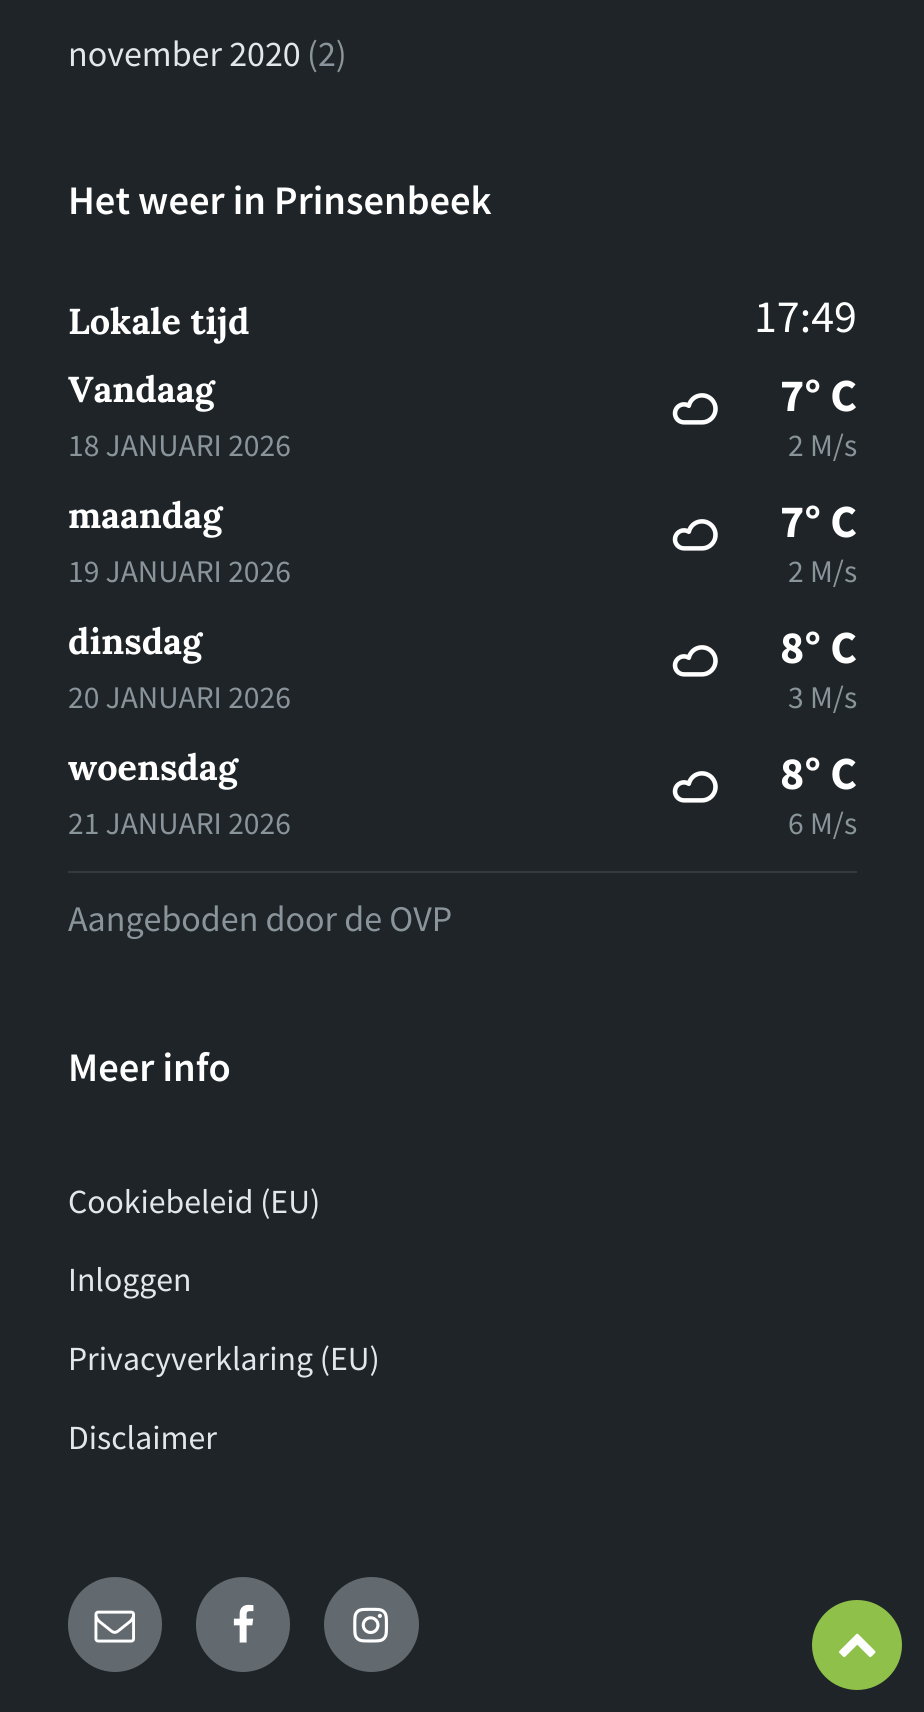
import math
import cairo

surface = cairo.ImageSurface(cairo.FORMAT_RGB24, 924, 1712)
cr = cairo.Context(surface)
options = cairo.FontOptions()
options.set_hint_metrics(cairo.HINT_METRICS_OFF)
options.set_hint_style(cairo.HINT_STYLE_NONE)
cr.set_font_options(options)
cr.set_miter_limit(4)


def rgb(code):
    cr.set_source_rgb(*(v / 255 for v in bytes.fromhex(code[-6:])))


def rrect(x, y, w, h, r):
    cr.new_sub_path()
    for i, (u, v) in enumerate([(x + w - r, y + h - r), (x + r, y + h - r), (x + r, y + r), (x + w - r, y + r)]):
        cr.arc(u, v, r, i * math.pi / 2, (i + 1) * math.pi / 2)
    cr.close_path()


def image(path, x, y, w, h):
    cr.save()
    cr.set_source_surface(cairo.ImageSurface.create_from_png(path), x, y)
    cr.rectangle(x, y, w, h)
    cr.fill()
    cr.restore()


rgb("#1e2427")
cr.paint()
image("img/1.png", 672, 393, 46, 32)
image("img/1.png", 672, 519, 46, 32)
image("img/1.png", 672, 645, 46, 32)
image("img/1.png", 672, 771, 46, 32)
rgb("#353a3d")
cr.rectangle(68, 871, 789, 2)
cr.fill()
rgb("#626a70")
rrect(68, 1577, 94, 95, 47)
cr.fill()
image("img/2.png", 94, 1610, 41, 33)
rrect(196, 1577, 94, 95, 47)
cr.fill()
image("img/3.png", 233, 1604, 21, 39)
cr.arc(371.5, 1624.5, 47.5, 0, 2 * math.pi)
cr.fill()
image("img/4.png", 353, 1607, 35, 36)
rgb("#8ec04a")
cr.arc(857, 1645, 45, 0, 2 * math.pi)
cr.fill()
image("img/5.png", 839, 1633, 37, 25)
cr.select_font_face("Source Sans Pro")
cr.set_font_size(36)
rgb("#e1e7ec")
cr.move_to(68, 66)
cr.show_text("november 2020")
rgb("#8a949b")
cr.move_to(307, 66)
cr.show_text("(2)")
cr.select_font_face("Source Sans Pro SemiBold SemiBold")
cr.set_font_size(40.5)
rgb("#ffffff")
cr.move_to(68, 214)
cr.show_text("Het weer in Prinsenbeek")
cr.select_font_face("Lora", cairo.FONT_SLANT_NORMAL, cairo.FONT_WEIGHT_BOLD)
cr.set_font_size(36)
cr.move_to(68, 334)
cr.show_text("Lokale tijd")
cr.select_font_face("Source Sans Pro")
cr.set_font_size(46)
cr.move_to(754, 332)
cr.show_text("17:49")
cr.select_font_face("Lora", cairo.FONT_SLANT_NORMAL, cairo.FONT_WEIGHT_BOLD)
cr.set_font_size(36)
cr.move_to(68, 402)
cr.show_text("Vandaag")
cr.select_font_face("Source Sans Pro")
cr.set_font_size(31.5)
rgb("#8a949b")
cr.move_to(68, 456)
cr.show_text("18 JANUARI 2026")
cr.select_font_face("Source Sans Pro", cairo.FONT_SLANT_NORMAL, cairo.FONT_WEIGHT_BOLD)
cr.set_font_size(46)
rgb("#ffffff")
cr.move_to(780, 411)
cr.show_text("7° C")
cr.select_font_face("Source Sans Pro")
cr.set_font_size(31.5)
rgb("#8a949b")
cr.move_to(788, 456)
cr.show_text("2 M/s")
cr.select_font_face("Lora", cairo.FONT_SLANT_NORMAL, cairo.FONT_WEIGHT_BOLD)
cr.set_font_size(36)
rgb("#ffffff")
cr.move_to(68, 528)
cr.show_text("maandag")
cr.select_font_face("Source Sans Pro")
cr.set_font_size(31.5)
rgb("#8a949b")
cr.move_to(68, 582)
cr.show_text("19 JANUARI 2026")
cr.select_font_face("Source Sans Pro", cairo.FONT_SLANT_NORMAL, cairo.FONT_WEIGHT_BOLD)
cr.set_font_size(46)
rgb("#ffffff")
cr.move_to(780, 537)
cr.show_text("7° C")
cr.select_font_face("Source Sans Pro")
cr.set_font_size(31.5)
rgb("#8a949b")
cr.move_to(788, 582)
cr.show_text("2 M/s")
cr.select_font_face("Lora", cairo.FONT_SLANT_NORMAL, cairo.FONT_WEIGHT_BOLD)
cr.set_font_size(36)
rgb("#ffffff")
cr.move_to(68, 654)
cr.show_text("dinsdag")
cr.select_font_face("Source Sans Pro")
cr.set_font_size(31.5)
rgb("#8a949b")
cr.move_to(68, 708)
cr.show_text("20 JANUARI 2026")
cr.select_font_face("Source Sans Pro", cairo.FONT_SLANT_NORMAL, cairo.FONT_WEIGHT_BOLD)
cr.set_font_size(46)
rgb("#ffffff")
cr.move_to(780, 663)
cr.show_text("8° C")
cr.select_font_face("Source Sans Pro")
cr.set_font_size(31.5)
rgb("#8a949b")
cr.move_to(788, 708)
cr.show_text("3 M/s")
cr.select_font_face("Lora", cairo.FONT_SLANT_NORMAL, cairo.FONT_WEIGHT_BOLD)
cr.set_font_size(36)
rgb("#ffffff")
cr.move_to(68, 780)
cr.show_text("woensdag")
cr.select_font_face("Source Sans Pro")
cr.set_font_size(31.5)
rgb("#8a949b")
cr.move_to(68, 834)
cr.show_text("21 JANUARI 2026")
cr.select_font_face("Source Sans Pro", cairo.FONT_SLANT_NORMAL, cairo.FONT_WEIGHT_BOLD)
cr.set_font_size(46)
rgb("#ffffff")
cr.move_to(780, 789)
cr.show_text("8° C")
cr.select_font_face("Source Sans Pro")
cr.set_font_size(31.5)
rgb("#8a949b")
cr.move_to(788, 834)
cr.show_text("6 M/s")
cr.set_font_size(36)
cr.move_to(68, 931)
cr.show_text("Aangeboden door de OVP")
cr.select_font_face("Source Sans Pro SemiBold SemiBold")
cr.set_font_size(40.5)
rgb("#ffffff")
cr.move_to(68, 1081)
cr.show_text("Meer info")
cr.select_font_face("Source Sans Pro")
cr.set_font_size(33.75)
rgb("#e1e7ec")
for x, y, s in [
    (68, 1213, "Cookiebeleid (EU)"),
    (68, 1291, "Inloggen"),
    (68, 1370, "Privacyverklaring (EU)"),
    (68, 1449, "Disclaimer"),
]:
    cr.move_to(x, y)
    cr.show_text(s)
surface.write_to_png("page.png")
